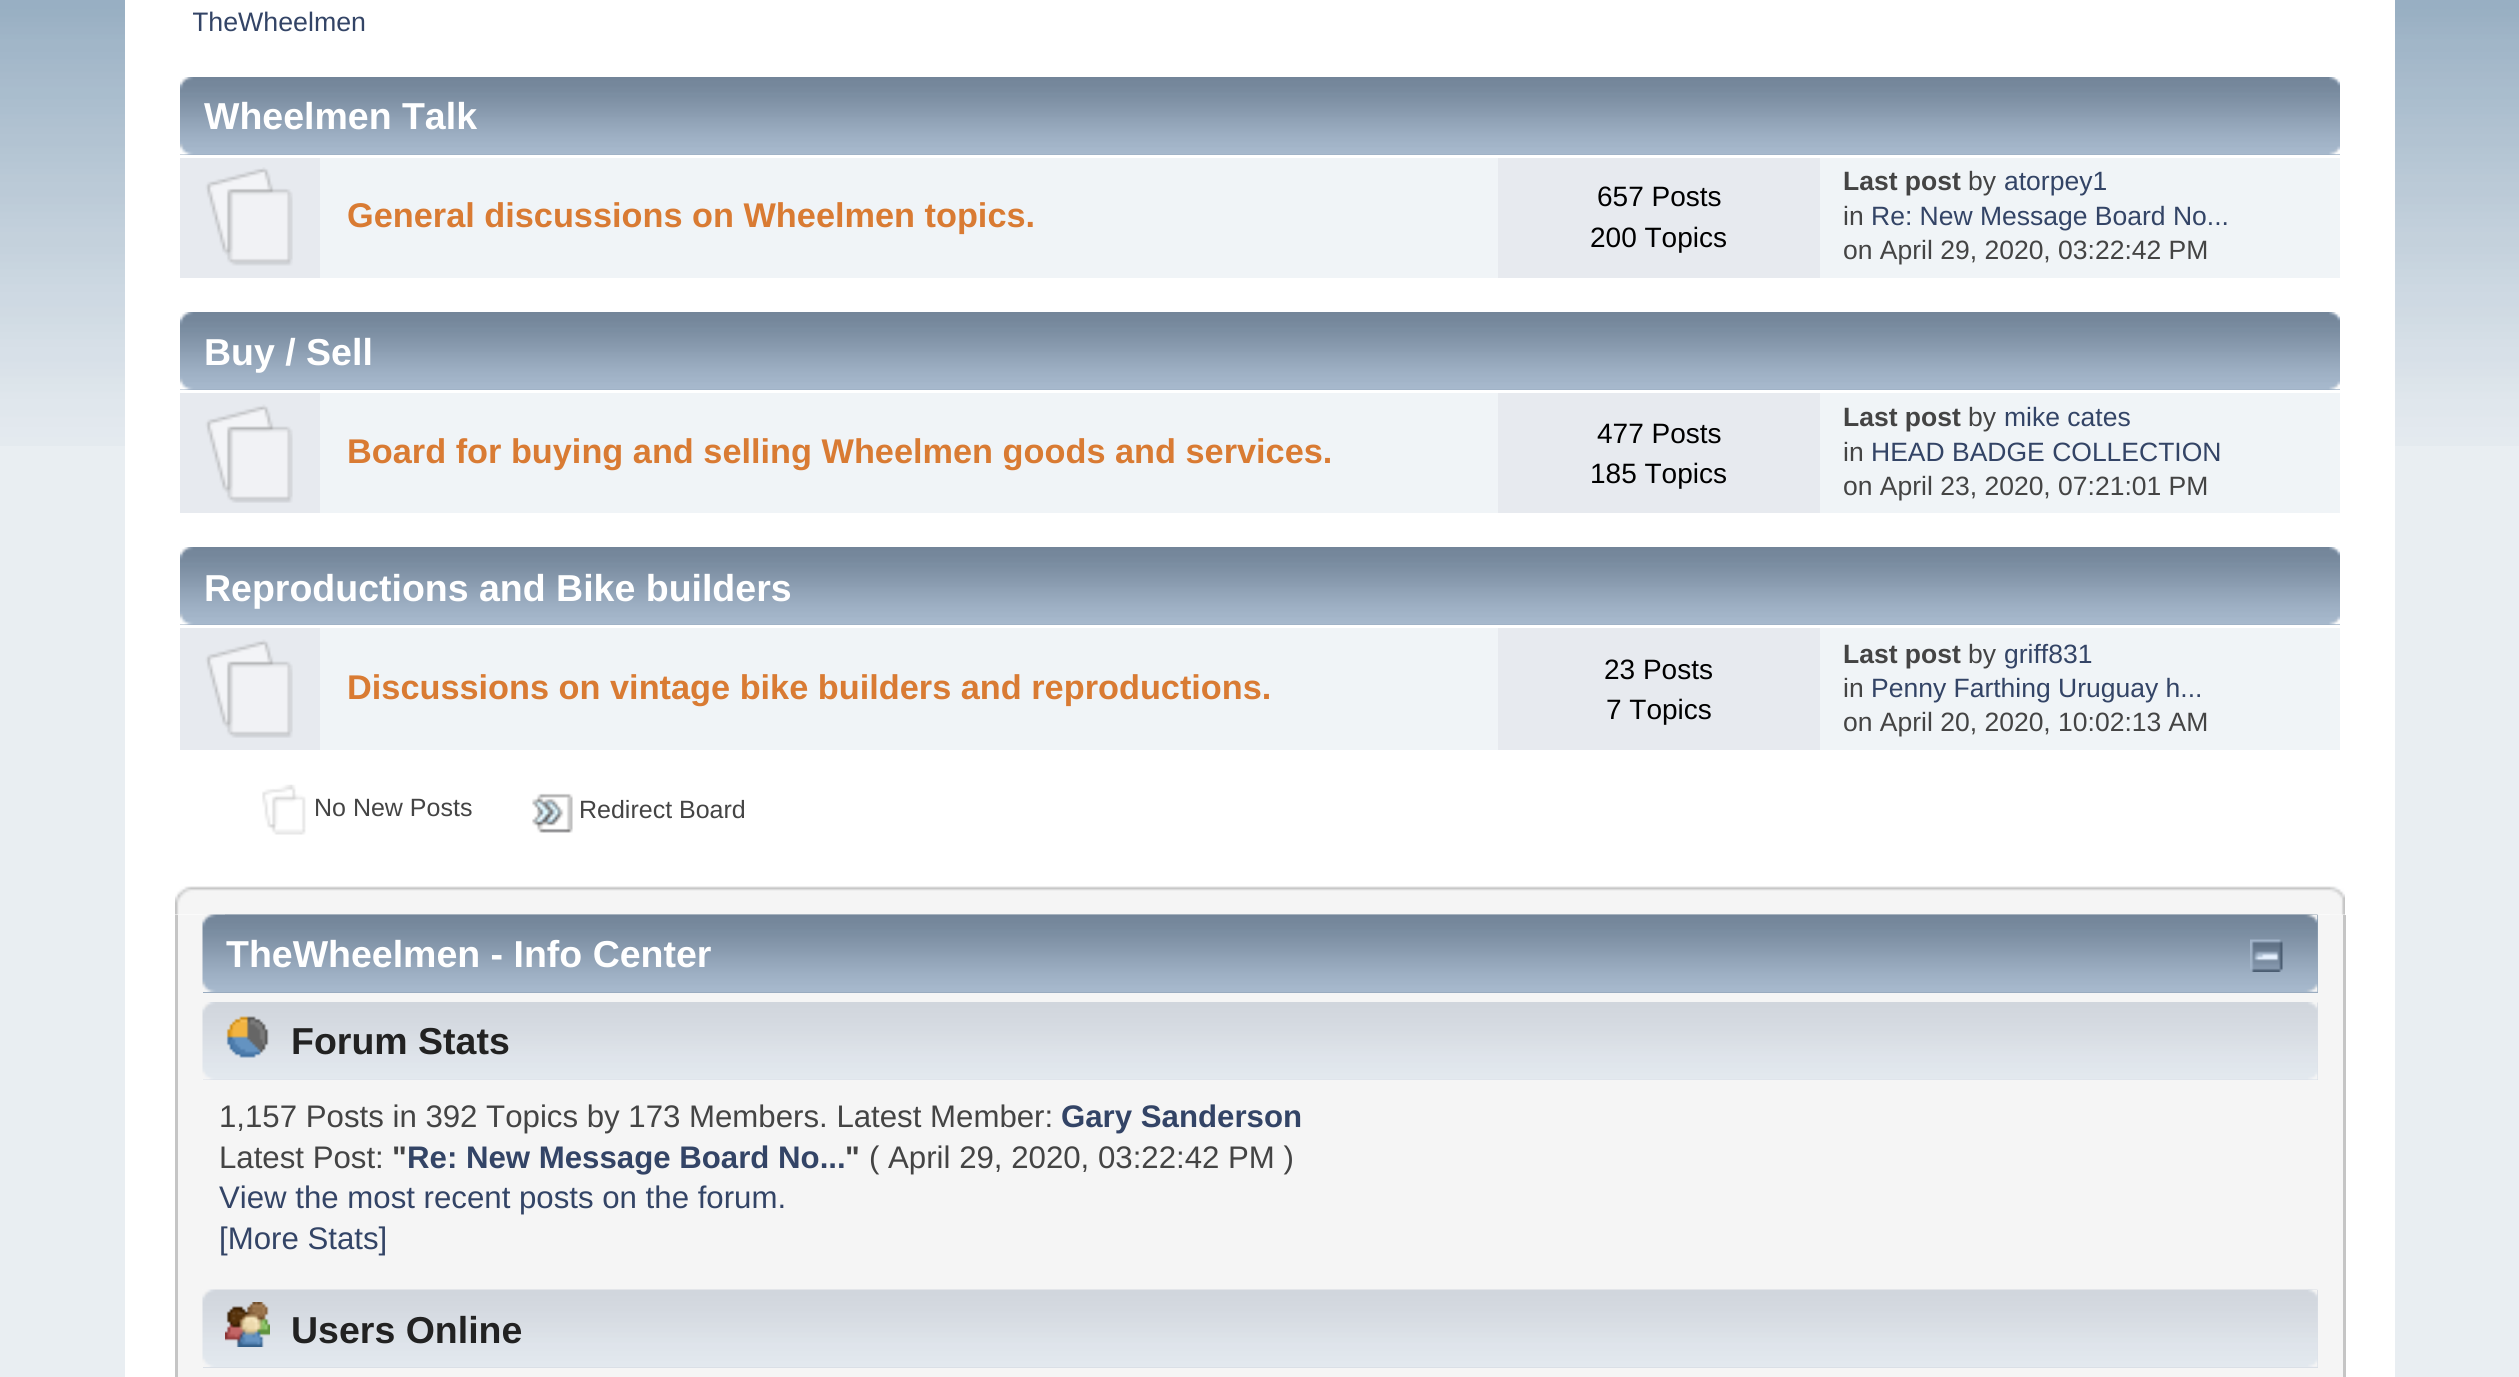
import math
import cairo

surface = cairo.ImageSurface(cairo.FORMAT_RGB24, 2519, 1377)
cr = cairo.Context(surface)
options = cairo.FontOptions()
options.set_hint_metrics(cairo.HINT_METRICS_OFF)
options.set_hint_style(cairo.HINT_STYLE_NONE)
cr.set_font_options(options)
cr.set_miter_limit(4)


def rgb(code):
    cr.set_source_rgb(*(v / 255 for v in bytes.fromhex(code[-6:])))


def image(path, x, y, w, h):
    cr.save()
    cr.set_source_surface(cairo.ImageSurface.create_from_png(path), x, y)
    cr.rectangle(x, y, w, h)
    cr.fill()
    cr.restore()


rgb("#e9eef2")
cr.paint()
image("img/1.png", 0, 0, 2519, 446)
rgb("#ffffff")
cr.rectangle(125, 0, 2270, 1377)
cr.fill()
rgb("#99abbf")
cr.rectangle(180, 154, 2160, 1)
cr.fill()
image("img/2.png", 180, 77, 2160, 78)
image("img/3.png", 2329, 77, 11, 78)
rgb("#f0f4f7")
cr.rectangle(320, 158, 2020, 120)
cr.fill()
rgb("#e7eaef")
cr.rectangle(180, 158, 140, 120)
cr.fill()
image("img/4.png", 205, 167, 88, 99)
cr.rectangle(1498, 158, 322, 120)
cr.fill()
rgb("#99abbf")
cr.rectangle(180, 389, 2160, 1)
cr.fill()
image("img/2.png", 180, 312, 2160, 78)
image("img/3.png", 2329, 312, 11, 78)
rgb("#f0f4f7")
cr.rectangle(320, 393, 2020, 120)
cr.fill()
rgb("#e7eaef")
cr.rectangle(180, 393, 140, 120)
cr.fill()
image("img/5.png", 205, 404, 88, 99)
cr.rectangle(1498, 393, 322, 120)
cr.fill()
rgb("#99abbf")
cr.rectangle(180, 624, 2160, 1)
cr.fill()
image("img/2.png", 180, 547, 2160, 78)
image("img/3.png", 2329, 547, 11, 78)
rgb("#f0f4f7")
cr.rectangle(320, 628, 2020, 122)
cr.fill()
rgb("#e7eaef")
cr.rectangle(180, 628, 140, 122)
cr.fill()
image("img/6.png", 205, 639, 88, 99)
cr.rectangle(1498, 628, 322, 122)
cr.fill()
image("img/7.png", 262, 784, 44, 51)
image("img/8.png", 532, 793, 41, 40)
image("img/9.png", 175, 886, 2170, 29)
image("img/10.png", 2330, 886, 15, 29)
for x, y, w, h, color in [
    (178, 915, 2165, 462, "#f5f5f5"),
    (2343, 915, 3, 462, "#c5c5c5"),
    (175, 915, 3, 462, "#c5c5c5"),
    (203, 915, 2115, 78, "#99abbf"),
]:
    rgb(color)
    cr.rectangle(x, y, w, h)
    cr.fill()
image("img/11.png", 202, 914, 2116, 78)
image("img/12.png", 225, 914, 2093, 78)
image("img/13.png", 2250, 939, 33, 33)
rgb("#dadfe6")
cr.rectangle(203, 1003, 2115, 77)
cr.fill()
image("img/14.png", 202, 1002, 2116, 78)
image("img/15.png", 2308, 1002, 10, 78)
image("img/16.png", 226, 1016, 43, 42)
cr.rectangle(203, 1290, 2115, 78)
cr.fill()
image("img/17.png", 202, 1289, 2116, 78)
image("img/18.png", 2308, 1289, 10, 78)
image("img/19.png", 225, 1302, 45, 45)
cr.save()
cr.rectangle(193, 0, 2135, 55)
cr.clip()
cr.select_font_face("Liberation Sans")
cr.set_font_size(26.75)
rgb("#334466")
cr.move_to(192, 31)
cr.show_text("TheWheelmen")
cr.restore()
cr.select_font_face("Liberation Sans", cairo.FONT_SLANT_NORMAL, cairo.FONT_WEIGHT_BOLD)
cr.set_font_size(37.5)
rgb("#ffffff")
cr.move_to(204, 129)
cr.show_text("Wheelmen Talk")
cr.set_font_size(34.3)
rgb("#d97b33")
cr.move_to(347, 227)
cr.show_text("General discussions on Wheelmen topics.")
cr.select_font_face("Liberation Sans")
cr.set_font_size(28)
rgb("#000000")
cr.move_to(1597, 206)
cr.show_text("657 Posts")
cr.move_to(1590, 247)
cr.show_text("200 Topics")
cr.select_font_face("Liberation Sans", cairo.FONT_SLANT_NORMAL, cairo.FONT_WEIGHT_BOLD)
cr.set_font_size(26.5)
rgb("#444444")
cr.move_to(1843, 190)
cr.show_text("Last post")
cr.select_font_face("Liberation Sans")
cr.move_to(1968, 190)
cr.show_text("by")
rgb("#334466")
cr.move_to(2004, 190)
cr.show_text("atorpey1")
rgb("#444444")
cr.move_to(1843, 225)
cr.show_text("in")
rgb("#334466")
cr.move_to(1871, 225)
cr.show_text("Re: New Message Board No...")
rgb("#444444")
cr.move_to(1843, 259)
cr.show_text("on April 29, 2020, 03:22:42 PM")
cr.select_font_face("Liberation Sans", cairo.FONT_SLANT_NORMAL, cairo.FONT_WEIGHT_BOLD)
cr.set_font_size(37.5)
rgb("#ffffff")
cr.move_to(204, 365)
cr.show_text("Buy / Sell")
cr.set_font_size(34.3)
rgb("#d97b33")
cr.move_to(347, 463)
cr.show_text("Board for buying and selling Wheelmen goods and services.")
cr.select_font_face("Liberation Sans")
cr.set_font_size(28)
rgb("#000000")
cr.move_to(1597, 443)
cr.show_text("477 Posts")
cr.move_to(1590, 483)
cr.show_text("185 Topics")
cr.select_font_face("Liberation Sans", cairo.FONT_SLANT_NORMAL, cairo.FONT_WEIGHT_BOLD)
cr.set_font_size(26.5)
rgb("#444444")
cr.move_to(1843, 426)
cr.show_text("Last post")
cr.select_font_face("Liberation Sans")
cr.move_to(1968, 426)
cr.show_text("by")
rgb("#334466")
cr.move_to(2004, 426)
cr.show_text("mike cates")
rgb("#444444")
cr.move_to(1843, 461)
cr.show_text("in")
rgb("#334466")
cr.move_to(1871, 461)
cr.show_text("HEAD BADGE COLLECTION")
rgb("#444444")
cr.move_to(1843, 495)
cr.show_text("on April 23, 2020, 07:21:01 PM")
cr.select_font_face("Liberation Sans", cairo.FONT_SLANT_NORMAL, cairo.FONT_WEIGHT_BOLD)
cr.set_font_size(37.5)
rgb("#ffffff")
cr.move_to(204, 601)
cr.show_text("Reproductions and Bike builders")
cr.set_font_size(34.3)
rgb("#d97b33")
cr.move_to(347, 699)
cr.show_text("Discussions on vintage bike builders and reproductions.")
cr.select_font_face("Liberation Sans")
cr.set_font_size(28)
rgb("#000000")
cr.move_to(1604, 679)
cr.show_text("23 Posts")
cr.move_to(1606, 719)
cr.show_text("7 Topics")
cr.select_font_face("Liberation Sans", cairo.FONT_SLANT_NORMAL, cairo.FONT_WEIGHT_BOLD)
cr.set_font_size(26.5)
rgb("#444444")
cr.move_to(1843, 663)
cr.show_text("Last post")
cr.select_font_face("Liberation Sans")
cr.move_to(1968, 663)
cr.show_text("by")
rgb("#334466")
cr.move_to(2004, 663)
cr.show_text("griff831")
rgb("#444444")
cr.move_to(1843, 697)
cr.show_text("in")
rgb("#334466")
cr.move_to(1871, 697)
cr.show_text("Penny Farthing Uruguay h...")
rgb("#444444")
cr.move_to(1843, 731)
cr.show_text("on April 20, 2020, 10:02:13 AM")
cr.set_font_size(25)
cr.move_to(314, 816)
cr.show_text("No New Posts")
cr.move_to(579, 818)
cr.show_text("Redirect Board")
cr.select_font_face("Liberation Sans", cairo.FONT_SLANT_NORMAL, cairo.FONT_WEIGHT_BOLD)
cr.set_font_size(37.5)
rgb("#ffffff")
cr.move_to(226, 967)
cr.show_text("TheWheelmen - Info Center")
rgb("#222222")
cr.move_to(291, 1054)
cr.show_text("Forum Stats")
cr.select_font_face("Liberation Sans")
cr.set_font_size(31.2)
rgb("#444444")
cr.move_to(219, 1127)
cr.show_text("1,157 Posts in 392 Topics by 173 Members. Latest Member:")
cr.select_font_face("Liberation Sans", cairo.FONT_SLANT_NORMAL, cairo.FONT_WEIGHT_BOLD)
rgb("#334466")
cr.move_to(1061, 1127)
cr.show_text("Gary Sanderson")
cr.select_font_face("Liberation Sans")
rgb("#444444")
cr.move_to(219, 1168)
cr.show_text("Latest Post:")
cr.select_font_face("Liberation Sans", cairo.FONT_SLANT_NORMAL, cairo.FONT_WEIGHT_BOLD)
cr.move_to(392, 1168)
cr.show_text("\"")
rgb("#334466")
cr.move_to(407, 1168)
cr.show_text("Re: New Message Board No...")
rgb("#444444")
cr.move_to(845, 1168)
cr.show_text("\"")
cr.select_font_face("Liberation Sans")
cr.move_to(869, 1168)
cr.show_text("( April 29, 2020, 03:22:42 PM )")
rgb("#334466")
cr.move_to(219, 1208)
cr.show_text("View the most recent posts on the forum.")
cr.move_to(219, 1249)
cr.show_text("[More Stats]")
cr.select_font_face("Liberation Sans", cairo.FONT_SLANT_NORMAL, cairo.FONT_WEIGHT_BOLD)
cr.set_font_size(37.5)
rgb("#222222")
cr.move_to(291, 1343)
cr.show_text("Users Online")
surface.write_to_png("page.png")
